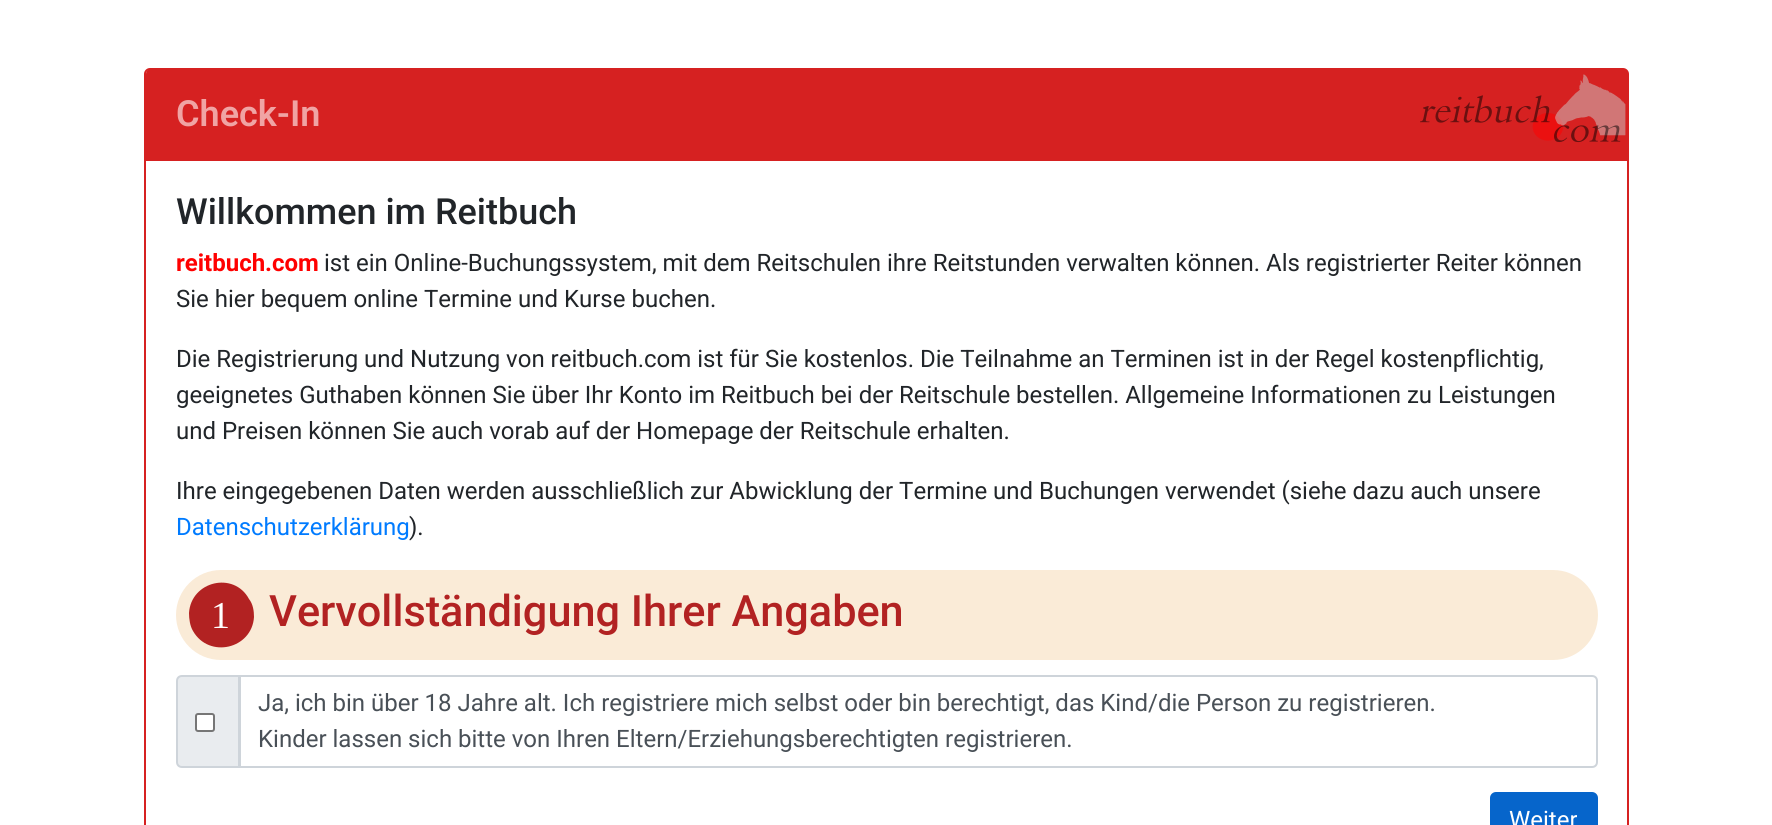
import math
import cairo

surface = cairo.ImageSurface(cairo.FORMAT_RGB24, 1772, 825)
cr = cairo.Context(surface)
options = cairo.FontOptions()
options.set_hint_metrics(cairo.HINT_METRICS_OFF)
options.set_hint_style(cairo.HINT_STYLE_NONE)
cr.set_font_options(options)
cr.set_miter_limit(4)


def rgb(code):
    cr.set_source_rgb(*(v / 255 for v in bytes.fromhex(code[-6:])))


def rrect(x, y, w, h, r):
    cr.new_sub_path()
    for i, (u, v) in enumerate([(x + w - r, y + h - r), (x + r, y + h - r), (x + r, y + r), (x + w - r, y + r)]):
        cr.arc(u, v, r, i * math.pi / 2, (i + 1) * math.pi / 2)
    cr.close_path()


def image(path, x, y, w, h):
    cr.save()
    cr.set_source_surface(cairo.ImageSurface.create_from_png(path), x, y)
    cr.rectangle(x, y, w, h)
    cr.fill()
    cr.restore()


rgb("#ffffff")
cr.paint()
rrect(145, 69, 1483, 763, 5)
rgb("#d62121")
cr.stroke()
cr.new_path()
cr.move_to(151, 69)
cr.line_to(1623, 69)
cr.curve_to(1626, 69, 1628, 71, 1628, 74)
cr.line_to(1628, 161)
cr.line_to(146, 161)
cr.line_to(146, 74)
cr.curve_to(146, 71, 148, 69, 151, 69)
cr.close_path()
cr.fill()
image("img/1.png", 1420, 74, 206, 69)
rgb("#faebd7")
rrect(176, 570, 1422, 90, 45)
cr.fill()
rgb("#b22222")
cr.new_path()
cr.move_to(249, 599)
cr.curve_to(253, 604, 254, 611, 254, 617)
cr.curve_to(252, 649, 209, 659, 193, 631)
cr.curve_to(190, 626, 189, 619, 189, 613)
cr.curve_to(191, 581, 234, 571, 249, 599)
cr.close_path()
cr.fill()
rgb("#e9ecef")
cr.new_path()
cr.move_to(182, 676)
cr.line_to(239, 676)
cr.line_to(239, 767)
cr.line_to(182, 767)
cr.curve_to(179, 767, 177, 765, 177, 762)
cr.line_to(177, 681)
cr.curve_to(177, 678, 179, 676, 182, 676)
cr.close_path()
cr.fill_preserve()
rgb("#ced4da")
cr.stroke()
rgb("#ffffff")
rrect(196, 714, 18, 17, 2)
cr.fill_preserve()
rgb("#767676")
cr.stroke()
cr.new_path()
cr.move_to(240, 676)
cr.line_to(1592, 676)
cr.curve_to(1595, 676, 1597, 678, 1597, 681)
cr.line_to(1597, 762)
cr.curve_to(1597, 765, 1595, 767, 1592, 767)
cr.line_to(240, 767)
cr.close_path()
rgb("#ced4da")
cr.stroke()
rgb("#0665cb")
rrect(1491, 793, 106, 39, 5)
cr.fill_preserve()
cr.stroke()
cr.select_font_face("Roboto SemiBold")
cr.set_font_size(36)
rgb("#f0a4a4")
cr.move_to(176, 126)
cr.show_text("Check-In")
cr.select_font_face("Roboto Medium")
rgb("#212529")
cr.move_to(176, 224)
cr.show_text("Willkommen im Reitbuch")
cr.select_font_face("Roboto", cairo.FONT_SLANT_NORMAL, cairo.FONT_WEIGHT_BOLD)
cr.set_font_size(24)
rgb("#ff0000")
cr.move_to(176, 271)
cr.show_text("reitbuch.com")
cr.select_font_face("Roboto")
rgb("#212529")
for x, y, s in [
    (324, 271, "ist ein Online-Buchungssystem, mit dem Reitschulen ihre Reitstunden verwalten können. Als registrierter Reiter können"),
    (176, 307, "Sie hier bequem online Termine und Kurse buchen."),
    (176, 367, "Die Registrierung und Nutzung von reitbuch.com ist für Sie kostenlos. Die Teilnahme an Terminen ist in der Regel kostenpflichtig,"),
    (176, 403, "geeignetes Guthaben können Sie über Ihr Konto im Reitbuch bei der Reitschule bestellen. Allgemeine Informationen zu Leistungen"),
    (176, 439, "und Preisen können Sie auch vorab auf der Homepage der Reitschule erhalten."),
    (176, 499, "Ihre eingegebenen Daten werden ausschließlich zur Abwicklung der Termine und Buchungen verwendet (siehe dazu auch unsere"),
]:
    cr.move_to(x, y)
    cr.show_text(s)
rgb("#007bff")
cr.move_to(176, 535)
cr.show_text("Datenschutzerklärung")
rgb("#212529")
cr.move_to(409, 535)
cr.show_text(").")
cr.select_font_face("Liberation Serif")
cr.set_font_size(38)
rgb("#ffffff")
cr.move_to(211, 628)
cr.show_text("1")
cr.select_font_face("Roboto Medium")
cr.set_font_size(43.25)
rgb("#b22222")
cr.move_to(269, 626)
cr.show_text("Vervollständigung Ihrer Angaben")
cr.select_font_face("Roboto")
cr.set_font_size(24)
rgb("#495057")
cr.move_to(258, 711)
cr.show_text("Ja, ich bin über 18 Jahre alt. Ich registriere mich selbst oder bin berechtigt, das Kind/die Person zu registrieren.")
cr.move_to(258, 747)
cr.show_text("Kinder lassen sich bitte von Ihren Eltern/Erziehungsberechtigten registrieren.")
rgb("#ffffff")
cr.move_to(1509, 828)
cr.show_text("Weiter")
surface.write_to_png("page.png")
